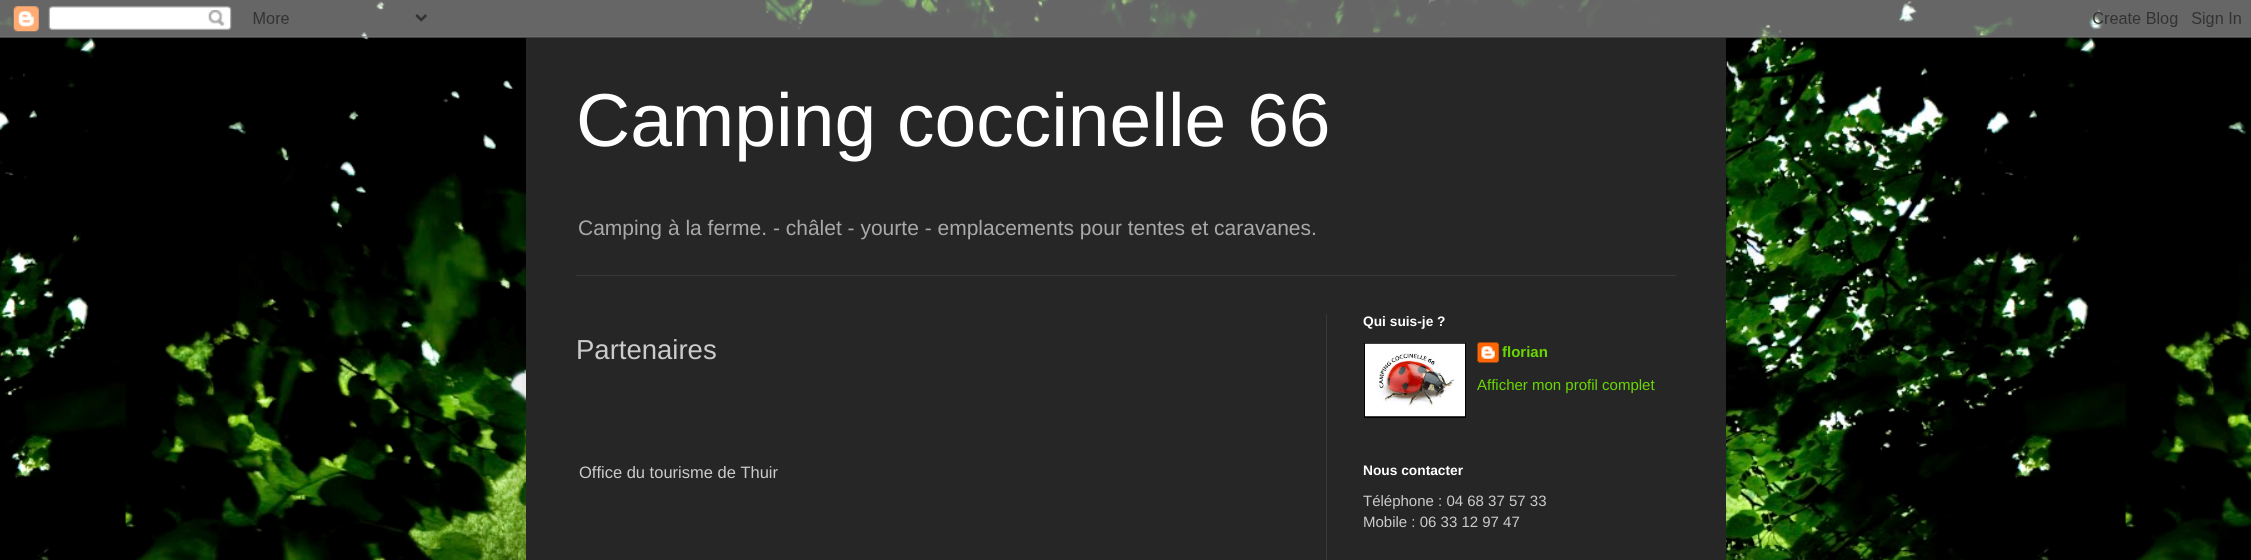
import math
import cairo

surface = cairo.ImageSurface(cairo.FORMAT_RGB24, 2251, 560)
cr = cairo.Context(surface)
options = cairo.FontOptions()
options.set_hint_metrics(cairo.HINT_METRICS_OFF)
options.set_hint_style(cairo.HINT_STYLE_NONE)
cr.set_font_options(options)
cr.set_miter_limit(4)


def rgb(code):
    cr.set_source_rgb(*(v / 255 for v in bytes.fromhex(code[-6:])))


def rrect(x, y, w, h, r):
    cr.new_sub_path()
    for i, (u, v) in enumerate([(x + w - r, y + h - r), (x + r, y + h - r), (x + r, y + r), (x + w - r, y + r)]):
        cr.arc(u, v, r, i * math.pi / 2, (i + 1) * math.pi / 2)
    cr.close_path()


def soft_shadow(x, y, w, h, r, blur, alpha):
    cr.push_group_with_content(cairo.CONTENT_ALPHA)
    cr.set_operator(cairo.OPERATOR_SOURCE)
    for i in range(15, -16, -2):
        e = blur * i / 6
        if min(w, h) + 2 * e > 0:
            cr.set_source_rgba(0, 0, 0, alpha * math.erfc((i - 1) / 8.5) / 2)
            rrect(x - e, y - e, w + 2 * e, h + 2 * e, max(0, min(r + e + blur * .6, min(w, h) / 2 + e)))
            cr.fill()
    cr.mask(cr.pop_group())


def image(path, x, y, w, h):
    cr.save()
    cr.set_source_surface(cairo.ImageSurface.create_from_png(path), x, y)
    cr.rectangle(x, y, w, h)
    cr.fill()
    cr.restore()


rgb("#ffffff")
cr.paint()
image("img/1.png", 0, 0, 2251, 560)
rgb("#000000")
soft_shadow(526, 38, 1200, 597, 0, 25, 0.15)
image("img/2.png", 0, 0, 2251, 38)
for x, y, w, h, color in [
    (526, 38, 1200, 522, "#262626"),
    (576, 275, 1100, 1, "#393939"),
    (1326, 314, 1, 246, "#393939"),
    (1364, 343, 102, 75, "#000000"),
]:
    rgb(color)
    cr.rectangle(x, y, w, h)
    cr.fill()
image("img/3.png", 1365, 343, 100, 74)
image("img/4.png", 1477, 342, 22, 21)
cr.select_font_face("Liberation Sans")
cr.set_font_size(75)
rgb("#ffffff")
cr.move_to(576, 146)
cr.show_text("Camping coccinelle 66")
cr.set_font_size(21)
rgb("#a9a9a9")
cr.move_to(578, 235)
cr.show_text("Camping à la ferme. - châlet - yourte - emplacements pour tentes et caravanes.")
cr.set_font_size(27.5)
rgb("#cbcbcb")
cr.move_to(576, 359)
cr.show_text("Partenaires")
cr.set_font_size(16.5)
cr.move_to(579, 478)
cr.show_text("Office du tourisme de Thuir")
cr.select_font_face("Liberation Sans", cairo.FONT_SLANT_NORMAL, cairo.FONT_WEIGHT_BOLD)
cr.set_font_size(13.75)
rgb("#ffffff")
cr.move_to(1363, 326)
cr.show_text("Qui suis-je ?")
cr.set_font_size(15)
rgb("#68d800")
cr.move_to(1502, 357)
cr.show_text("florian")
cr.select_font_face("Liberation Sans")
cr.move_to(1477, 390)
cr.show_text("Afficher mon profil complet")
cr.select_font_face("Liberation Sans", cairo.FONT_SLANT_NORMAL, cairo.FONT_WEIGHT_BOLD)
cr.set_font_size(13.75)
rgb("#ffffff")
cr.move_to(1363, 475)
cr.show_text("Nous contacter")
cr.select_font_face("Liberation Sans")
cr.set_font_size(15)
rgb("#cbcbcb")
cr.move_to(1363, 506)
cr.show_text("Téléphone : 04 68 37 57 33")
cr.move_to(1363, 527)
cr.show_text("Mobile : 06 33 12 97 47")
surface.write_to_png("page.png")
